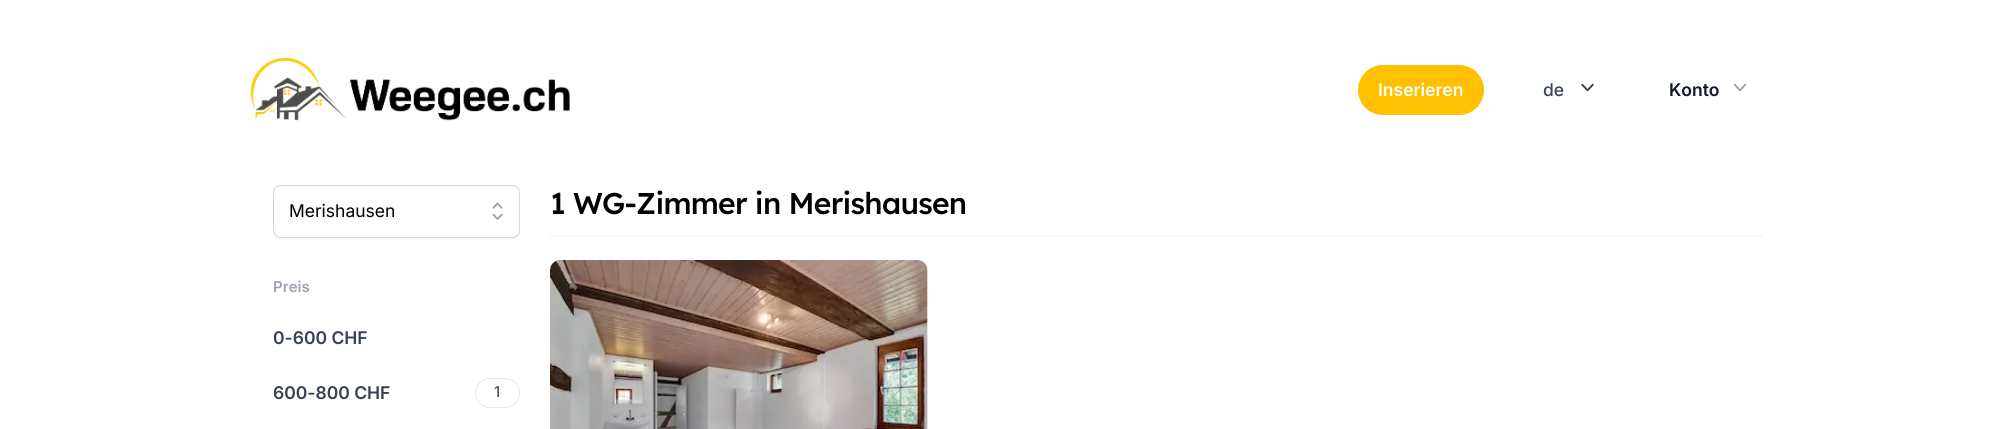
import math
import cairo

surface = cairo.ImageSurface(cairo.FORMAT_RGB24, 2005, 429)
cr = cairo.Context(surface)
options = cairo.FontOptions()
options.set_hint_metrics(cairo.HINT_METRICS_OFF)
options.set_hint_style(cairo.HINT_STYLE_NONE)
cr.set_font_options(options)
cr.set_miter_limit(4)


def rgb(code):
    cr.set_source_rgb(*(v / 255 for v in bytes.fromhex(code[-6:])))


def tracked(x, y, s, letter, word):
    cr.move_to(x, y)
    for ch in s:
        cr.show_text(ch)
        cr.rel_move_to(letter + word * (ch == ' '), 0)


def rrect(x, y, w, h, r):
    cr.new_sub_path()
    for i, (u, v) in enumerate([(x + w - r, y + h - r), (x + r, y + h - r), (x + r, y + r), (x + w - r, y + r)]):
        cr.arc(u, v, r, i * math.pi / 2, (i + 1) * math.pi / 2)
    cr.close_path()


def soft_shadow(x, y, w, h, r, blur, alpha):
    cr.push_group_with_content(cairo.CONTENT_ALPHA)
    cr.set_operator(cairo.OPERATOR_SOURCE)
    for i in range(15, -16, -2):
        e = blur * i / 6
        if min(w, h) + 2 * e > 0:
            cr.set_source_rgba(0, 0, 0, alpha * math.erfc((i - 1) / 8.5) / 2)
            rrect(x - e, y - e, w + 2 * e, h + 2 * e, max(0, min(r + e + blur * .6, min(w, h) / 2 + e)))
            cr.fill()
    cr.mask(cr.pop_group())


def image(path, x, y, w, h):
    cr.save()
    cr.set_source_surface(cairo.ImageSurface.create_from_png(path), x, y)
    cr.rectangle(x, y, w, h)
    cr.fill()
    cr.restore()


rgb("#ffffff")
cr.paint()
image("img/1.png", 250, 57, 320, 64)
rgb("#ffc000")
rrect(1358, 65, 126, 50, 25)
cr.fill()
image("img/2.png", 1581, 83, 13, 9)
image("img/3.png", 1733, 83, 14, 9)
rgb("#000000")
soft_shadow(273, 186, 247, 53, 8, 1, 0.05)
rgb("#ffffff")
rrect(273.5, 185.5, 246, 52, 7.5)
cr.fill_preserve()
rgb("#d1d5db")
cr.set_line_width(1)
cr.stroke()
image("img/4.png", 492, 202, 11, 18)
rrect(475.5, 378.5, 44, 29, 14.5)
rgb("#e5e7eb")
cr.stroke()
rgb("#000000")
soft_shadow(550, 156, 1213, 80, 0, 1, 0.05)
rgb("#ffffff")
cr.rectangle(550, 155, 1213, 80)
cr.fill()
rgb("#f3f4f6")
rrect(550, 260, 378, 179, 10)
cr.fill()
image("img/5.png", 550, 260, 378, 169)
cr.select_font_face("Inter SemiBold")
cr.set_font_size(17.5)
rgb("#ffffff")
cr.move_to(1378, 96)
cr.show_text("Inserieren")
cr.select_font_face("Inter Medium")
rgb("#374151")
cr.move_to(1543, 96)
cr.show_text("de")
cr.select_font_face("Inter SemiBold")
rgb("#111827")
cr.move_to(1669, 96)
cr.show_text("Konto")
cr.select_font_face("Inter")
rgb("#000000")
cr.move_to(289, 217)
cr.show_text("Merishausen")
cr.select_font_face("Inter SemiBold")
cr.set_font_size(15)
rgb("#9ca3af")
cr.move_to(273, 292)
cr.show_text("Preis")
cr.set_font_size(17.5)
rgb("#374151")
cr.move_to(273, 344)
cr.show_text("0-600 CHF")
cr.move_to(273, 399)
cr.show_text("600-800 CHF")
cr.select_font_face("Inter Medium")
cr.set_font_size(15)
rgb("#4b5563")
cr.move_to(494, 397)
cr.show_text("1")
cr.select_font_face("Lexend Medium")
cr.set_font_size(30)
rgb("#000000")
tracked(550, 214, "1 WG-Zimmer in Merishausen", -0.75, 0)
surface.write_to_png("page.png")
